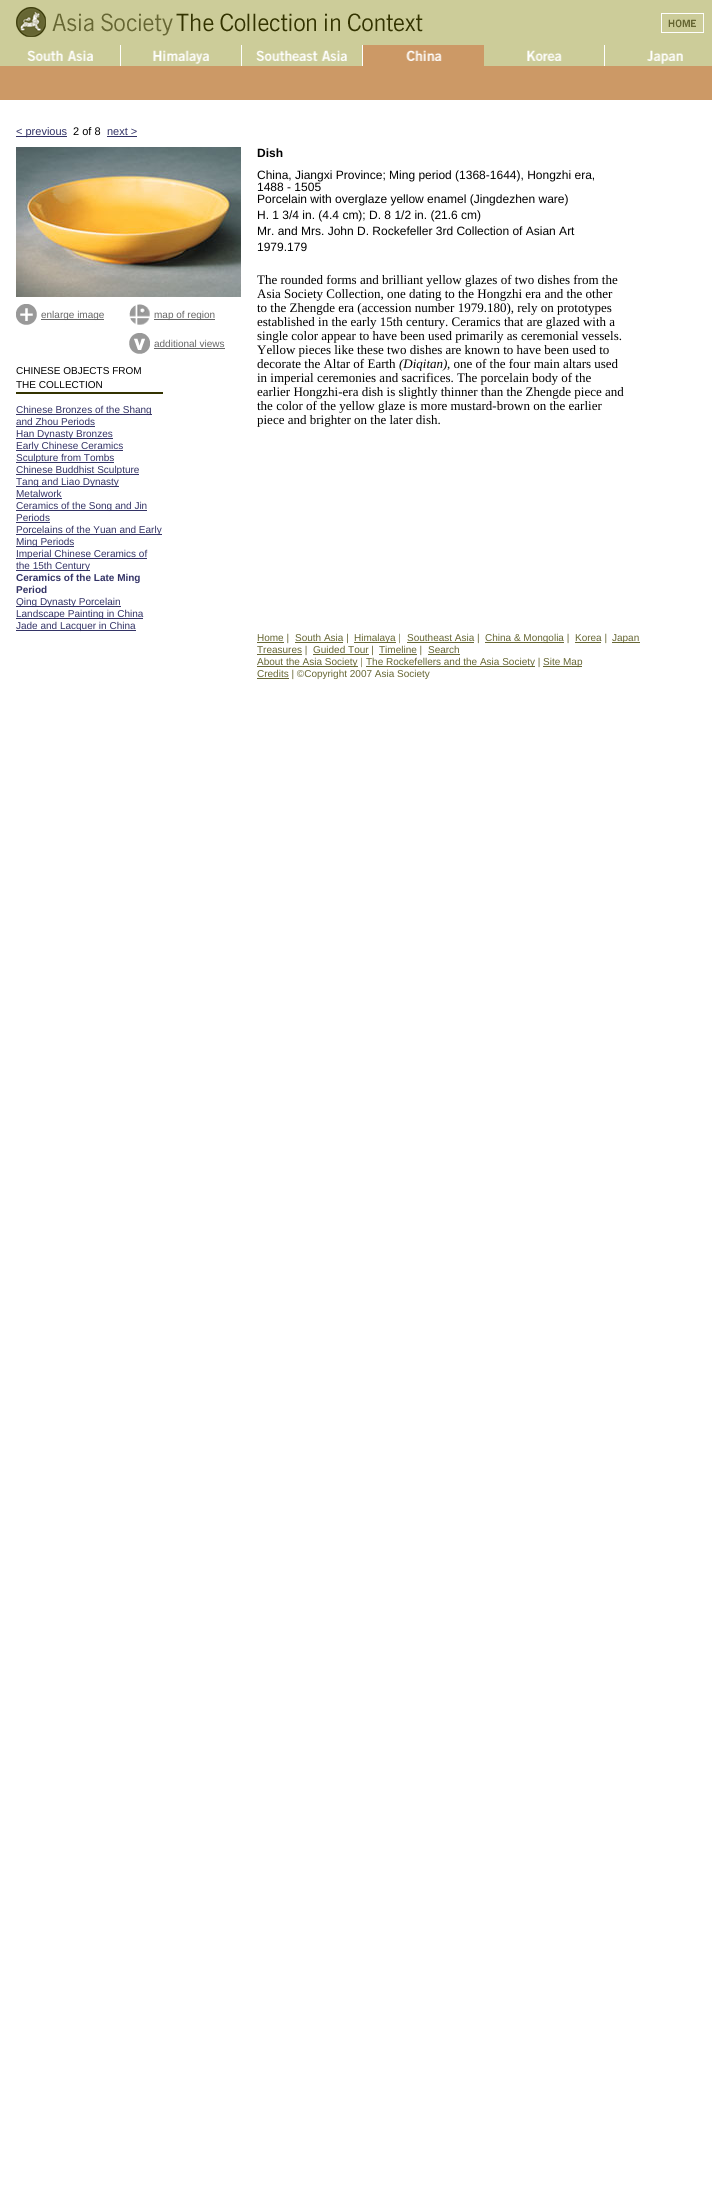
import math
import cairo

surface = cairo.ImageSurface(cairo.FORMAT_RGB24, 712, 2185)
cr = cairo.Context(surface)
options = cairo.FontOptions()
options.set_hint_metrics(cairo.HINT_METRICS_OFF)
options.set_hint_style(cairo.HINT_STYLE_NONE)
cr.set_font_options(options)
cr.set_miter_limit(4)


def rgb(code):
    cr.set_source_rgb(*(v / 255 for v in bytes.fromhex(code[-6:])))


def image(path, x, y, w, h):
    cr.save()
    cr.set_source_surface(cairo.ImageSurface.create_from_png(path), x, y)
    cr.rectangle(x, y, w, h)
    cr.fill()
    cr.restore()


rgb("#ffffff")
cr.paint()
rgb("#cccc99")
cr.rectangle(0, 0, 712, 66)
cr.fill()
image("img/1.png", 16, 7, 407, 30)
image("img/2.png", 661, 13, 43, 20)
image("img/3.png", 27, 45, 94, 21)
image("img/4.png", 153, 45, 89, 21)
image("img/5.png", 256, 45, 107, 21)
image("img/6.png", 363, 45, 121, 21)
image("img/7.png", 527, 45, 78, 21)
image("img/8.png", 647, 50, 36, 14)
for x, y, w, h, color in [
    (0, 66, 712, 34, "#cc9966"),
    (16, 136, 51, 1, "#333366"),
    (107, 136, 30, 1, "#333366"),
]:
    rgb(color)
    cr.rectangle(x, y, w, h)
    cr.fill()
image("img/9.png", 16, 147, 225, 150)
image("img/10.png", 16, 304, 21, 21)
rgb("#666666")
cr.rectangle(41, 319, 63, 1)
cr.fill()
image("img/11.png", 129, 304, 21, 21)
cr.rectangle(154, 319, 61, 1)
cr.fill()
image("img/12.png", 129, 333, 21, 21)
for x, y, w, h, color in [
    (154, 348, 71, 1, "#666666"),
    (16, 392, 147, 2, "#333300"),
    (16, 414, 136, 1, "#333366"),
    (16, 426, 79, 1, "#333366"),
    (16, 438, 97, 1, "#333366"),
    (16, 450, 107, 1, "#333366"),
    (16, 462, 98, 1, "#333366"),
    (16, 474, 123, 1, "#333366"),
    (16, 486, 103, 1, "#333366"),
    (16, 498, 46, 1, "#333366"),
    (16, 510, 131, 1, "#333366"),
    (16, 522, 34, 1, "#333366"),
    (16, 534, 146, 1, "#333366"),
    (16, 546, 58, 1, "#333366"),
    (16, 558, 131, 1, "#333366"),
    (16, 570, 74, 1, "#333366"),
    (16, 606, 105, 1, "#333366"),
    (16, 618, 127, 1, "#333366"),
    (16, 630, 120, 1, "#333366"),
    (257, 642, 27, 1, "#666633"),
    (295, 642, 48, 1, "#666633"),
    (354, 642, 42, 1, "#666633"),
    (407, 642, 67, 1, "#666633"),
    (485, 642, 79, 1, "#666633"),
    (575, 642, 26, 1, "#666633"),
    (612, 642, 28, 1, "#666633"),
    (257, 654, 45, 1, "#666633"),
    (313, 654, 56, 1, "#666633"),
    (379, 654, 38, 1, "#666633"),
    (428, 654, 32, 1, "#666633"),
    (257, 666, 101, 1, "#666633"),
    (366, 666, 169, 1, "#666633"),
    (543, 666, 39, 1, "#666633"),
    (257, 678, 32, 1, "#666633"),
]:
    rgb(color)
    cr.rectangle(x, y, w, h)
    cr.fill()
cr.select_font_face("Liberation Sans")
cr.set_font_size(11)
rgb("#333366")
cr.move_to(16, 135)
cr.show_text("< previous")
rgb("#000000")
cr.move_to(73, 135)
cr.show_text("2 of 8")
rgb("#333366")
cr.move_to(107, 135)
cr.show_text("next >")
cr.set_font_size(10)
rgb("#666666")
for x, y, s in [
    (41, 318, "enlarge image"),
    (154, 318, "map of region"),
    (154, 347, "additional views"),
]:
    cr.move_to(x, y)
    cr.show_text(s)
rgb("#000000")
cr.move_to(16, 374)
cr.show_text("CHINESE OBJECTS FROM")
cr.move_to(16, 388)
cr.show_text("THE COLLECTION")
rgb("#333366")
for x, y, s in [
    (16, 413, "Chinese Bronzes of the Shang"),
    (16, 425, "and Zhou Periods"),
    (16, 437, "Han Dynasty Bronzes"),
    (16, 449, "Early Chinese Ceramics"),
    (16, 461, "Sculpture from Tombs"),
    (16, 473, "Chinese Buddhist Sculpture"),
    (16, 485, "Tang and Liao Dynasty"),
    (16, 497, "Metalwork"),
    (16, 509, "Ceramics of the Song and Jin"),
    (16, 521, "Periods"),
    (16, 533, "Porcelains of the Yuan and Early"),
    (16, 545, "Ming Periods"),
    (16, 557, "Imperial Chinese Ceramics of"),
    (16, 569, "the 15th Century"),
]:
    cr.move_to(x, y)
    cr.show_text(s)
cr.select_font_face("Liberation Sans", cairo.FONT_SLANT_NORMAL, cairo.FONT_WEIGHT_BOLD)
cr.move_to(16, 581)
cr.show_text("Ceramics of the Late Ming")
cr.move_to(16, 593)
cr.show_text("Period")
cr.select_font_face("Liberation Sans")
for x, y, s in [
    (16, 605, "Qing Dynasty Porcelain"),
    (16, 617, "Landscape Painting in China"),
    (16, 629, "Jade and Lacquer in China"),
]:
    cr.move_to(x, y)
    cr.show_text(s)
cr.select_font_face("Liberation Sans", cairo.FONT_SLANT_NORMAL, cairo.FONT_WEIGHT_BOLD)
cr.set_font_size(12)
rgb("#000000")
cr.move_to(257, 157)
cr.show_text("Dish")
cr.select_font_face("Liberation Sans")
for x, y, s in [
    (257, 179, "China, Jiangxi Province; Ming period (1368-1644), Hongzhi era,"),
    (257, 191, "1488 - 1505"),
    (257, 203, "Porcelain with overglaze yellow enamel (Jingdezhen ware)"),
    (257, 219, "H. 1 3/4 in. (4.4 cm); D. 8 1/2 in. (21.6 cm)"),
    (257, 235, "Mr. and Mrs. John D. Rockefeller 3rd Collection of Asian Art"),
    (257, 251, "1979.179"),
]:
    cr.move_to(x, y)
    cr.show_text(s)
cr.select_font_face("Liberation Serif")
cr.set_font_size(13)
for x, y, s in [
    (257, 284, "The rounded forms and brilliant yellow glazes of two dishes from the"),
    (257, 298, "Asia Society Collection, one dating to the Hongzhi era and the other"),
    (257, 312, "to the Zhengde era (accession number 1979.180), rely on prototypes"),
    (257, 326, "established in the early 15th century. Ceramics that are glazed with a"),
    (257, 340, "single color appear to have been used primarily as ceremonial vessels."),
    (257, 354, "Yellow pieces like these two dishes are known to have been used to"),
    (257, 368, "decorate the Altar of Earth"),
]:
    cr.move_to(x, y)
    cr.show_text(s)
cr.select_font_face("Liberation Serif", cairo.FONT_SLANT_ITALIC)
cr.move_to(399, 368)
cr.show_text("(Diqitan)")
cr.select_font_face("Liberation Serif")
for x, y, s in [
    (447, 368, ", one of the four main altars used"),
    (257, 382, "in imperial ceremonies and sacrifices. The porcelain body of the"),
    (257, 396, "earlier Hongzhi-era dish is slightly thinner than the Zhengde piece and"),
    (257, 410, "the color of the yellow glaze is more mustard-brown on the earlier"),
    (257, 424, "piece and brighter on the later dish."),
]:
    cr.move_to(x, y)
    cr.show_text(s)
cr.select_font_face("Liberation Sans")
cr.set_font_size(10)
rgb("#666633")
for x, y, s in [
    (257, 641, "Home |"),
    (295, 641, "South Asia |"),
    (354, 641, "Himalaya |"),
    (407, 641, "Southeast Asia |"),
    (485, 641, "China & Mongolia |"),
    (575, 641, "Korea |"),
    (612, 641, "Japan"),
    (257, 653, "Treasures |"),
    (313, 653, "Guided Tour |"),
    (379, 653, "Timeline |"),
    (428, 653, "Search"),
    (257, 665, "About the Asia Society |"),
    (366, 665, "The Rockefellers and the Asia Society |"),
    (543, 665, "Site Map"),
    (257, 677, "Credits | ©Copyright 2007 Asia Society"),
]:
    cr.move_to(x, y)
    cr.show_text(s)
surface.write_to_png("page.png")
